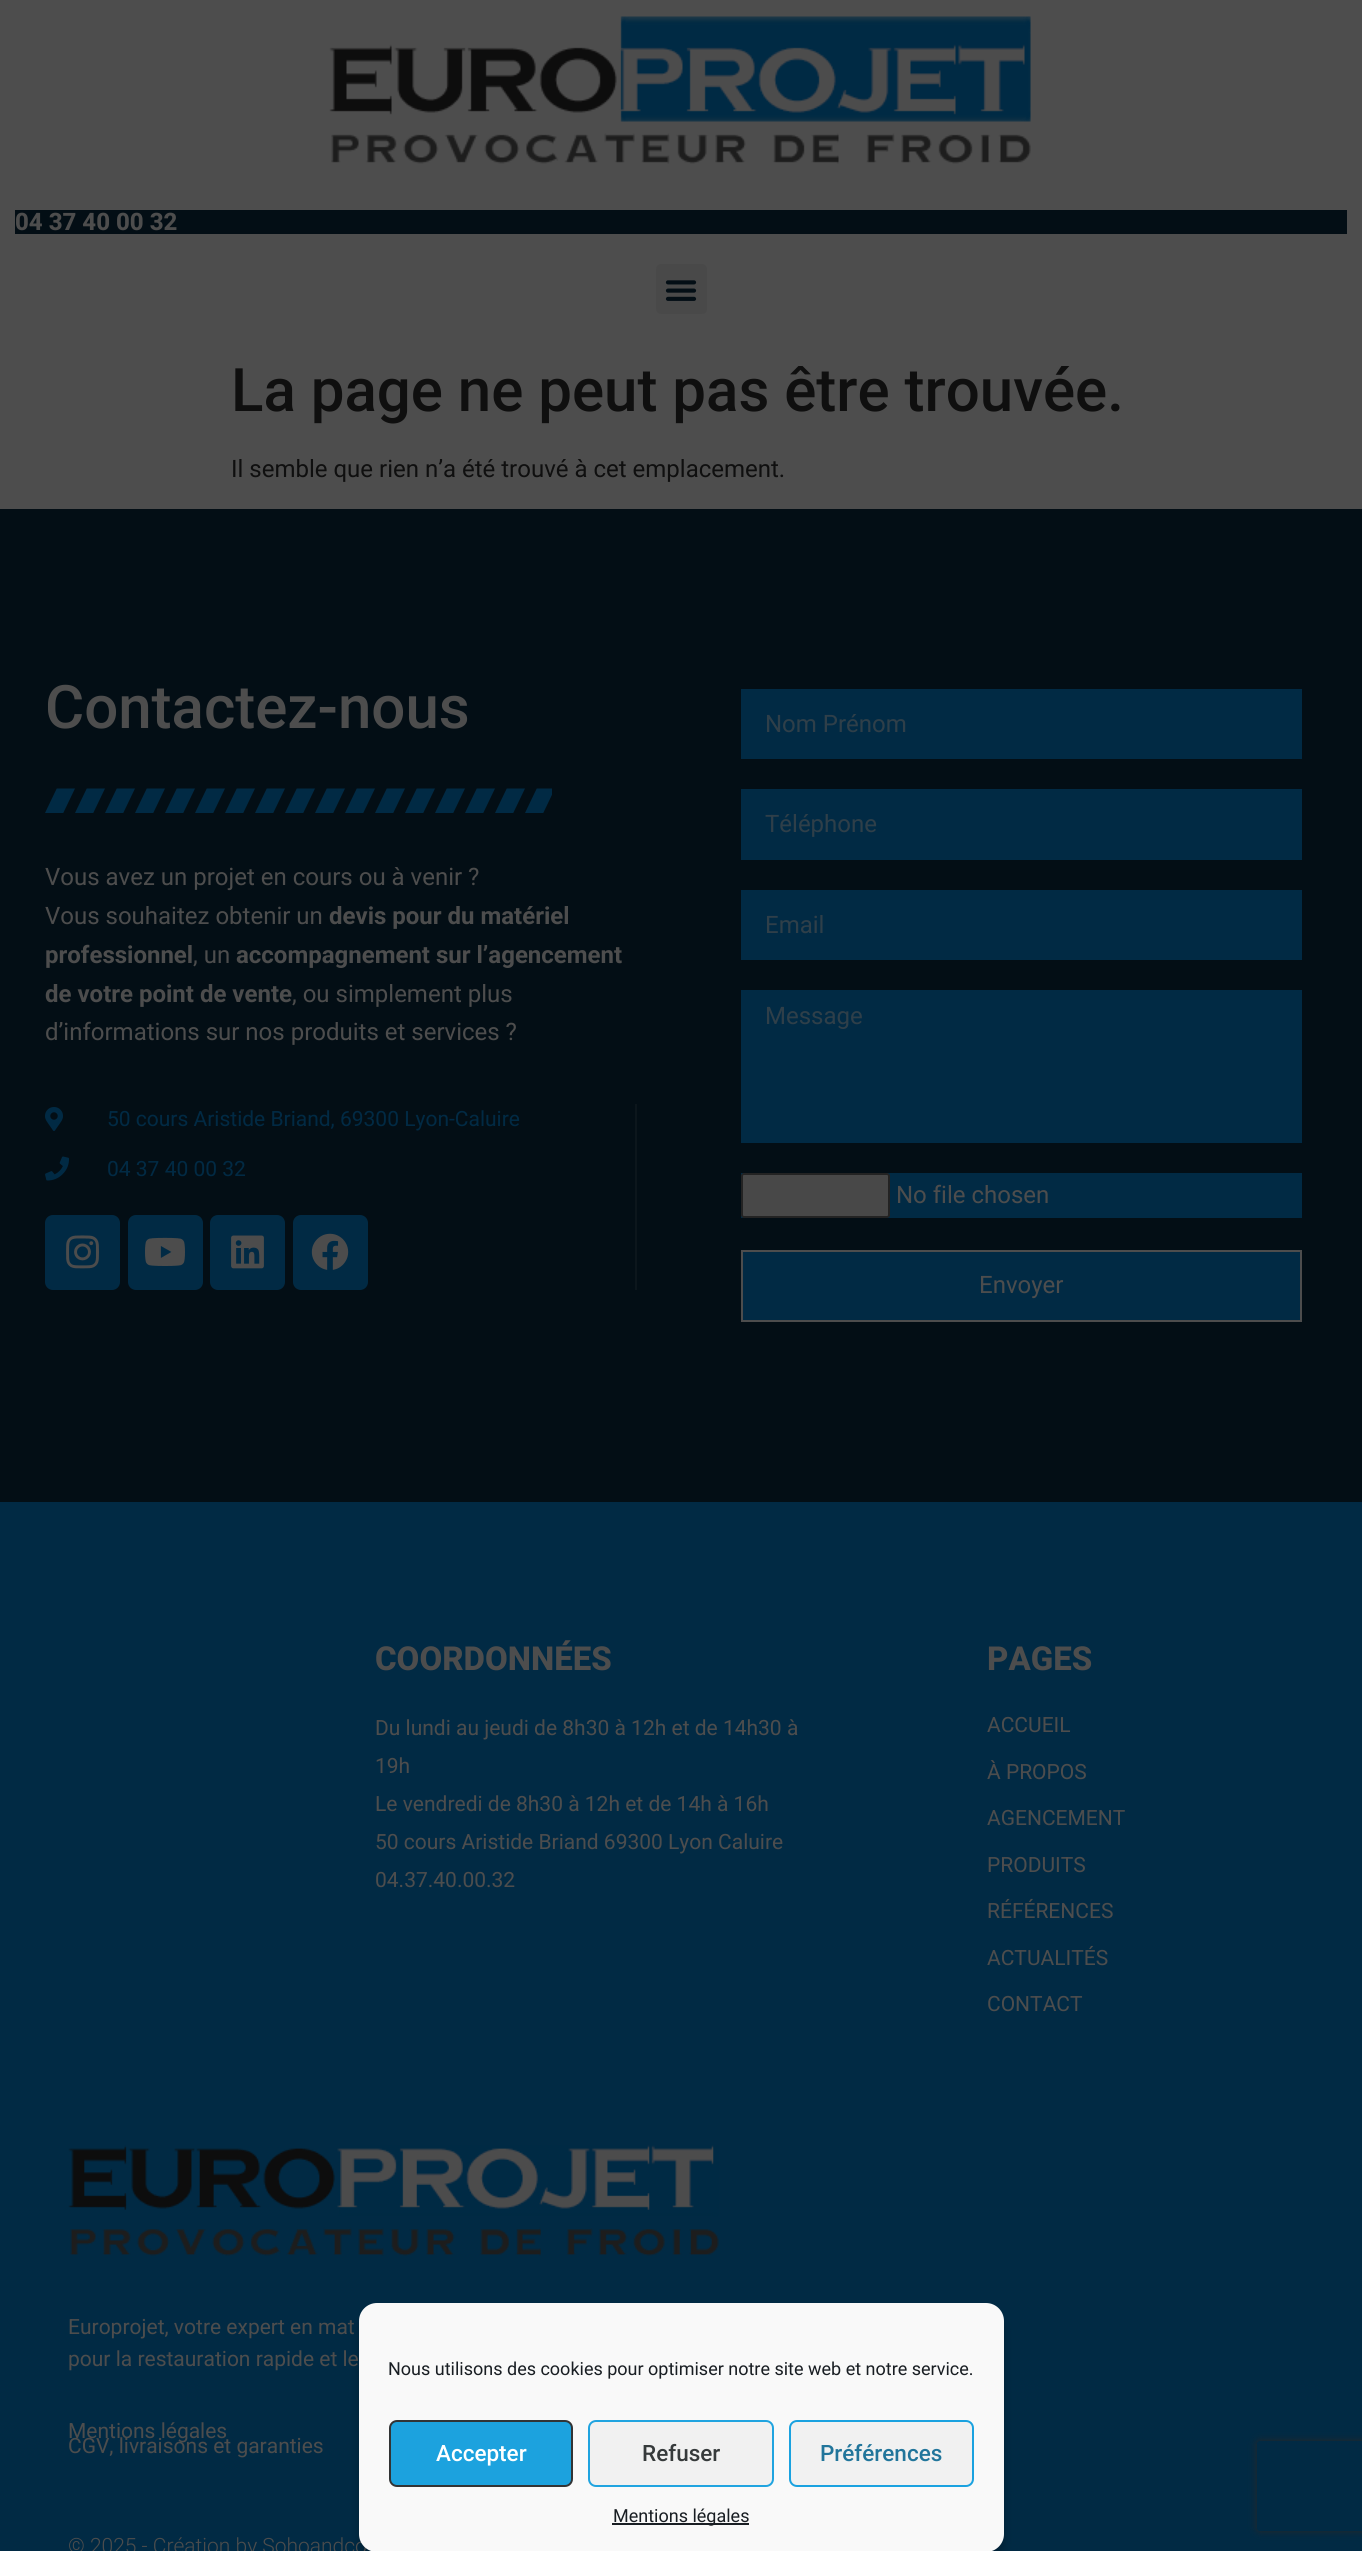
import math
import cairo

surface = cairo.ImageSurface(cairo.FORMAT_RGB24, 1362, 2551)
cr = cairo.Context(surface)
options = cairo.FontOptions()
options.set_hint_metrics(cairo.HINT_METRICS_OFF)
options.set_hint_style(cairo.HINT_STYLE_NONE)
cr.set_font_options(options)
cr.set_miter_limit(4)


def rgb(code):
    cr.set_source_rgb(*(v / 255 for v in bytes.fromhex(code[-6:])))


def rrect(x, y, w, h, r):
    cr.new_sub_path()
    for i, (u, v) in enumerate([(x + w - r, y + h - r), (x + r, y + h - r), (x + r, y + r), (x + w - r, y + r)]):
        cr.arc(u, v, r, i * math.pi / 2, (i + 1) * math.pi / 2)
    cr.close_path()


def soft_shadow(x, y, w, h, r, blur, alpha):
    cr.push_group_with_content(cairo.CONTENT_ALPHA)
    cr.set_operator(cairo.OPERATOR_SOURCE)
    for i in range(15, -16, -2):
        e = blur * i / 6
        if min(w, h) + 2 * e > 0:
            cr.set_source_rgba(0, 0, 0, alpha * math.erfc((i - 1) / 8.5) / 2)
            rrect(x - e, y - e, w + 2 * e, h + 2 * e, max(0, min(r + e + blur * .6, min(w, h) / 2 + e)))
            cr.fill()
    cr.mask(cr.pop_group())


def image(path, x, y, w, h):
    cr.save()
    cr.set_source_surface(cairo.ImageSurface.create_from_png(path), x, y)
    cr.rectangle(x, y, w, h)
    cr.fill()
    cr.restore()


rgb("#4d4d4d")
cr.paint()
image("img/1.png", 329, 16, 702, 148)
rgb("#030e15")
cr.rectangle(15, 210, 1332, 24)
cr.fill()
rgb("#494949")
rrect(656, 264, 51, 50, 5)
cr.fill()
image("img/2.png", 665, 280, 32, 21)
rgb("#030e15")
cr.rectangle(0, 509, 1362, 993)
cr.fill()
image("img/3.png", 45, 788, 507, 25)
rgb("#0c161c")
cr.rectangle(635, 1104, 2, 186)
cr.fill()
image("img/4.png", 45, 1107, 18, 24)
image("img/5.png", 45, 1156, 24, 25)
rgb("#012a44")
rrect(45, 1215, 75, 75, 8)
cr.fill()
image("img/6.png", 66, 1235, 33, 34)
rrect(128, 1215, 75, 75, 8)
cr.fill()
image("img/7.png", 145, 1237, 40, 29)
rrect(210, 1215, 75, 75, 8)
cr.fill()
image("img/8.png", 231, 1235, 33, 34)
rrect(293, 1215, 75, 75, 8)
cr.fill()
image("img/9.png", 311, 1233, 38, 37)
for x, y, w, h, color in [
    (741, 689, 561, 70, "#012a44"),
    (741, 789, 561, 71, "#012a44"),
    (741, 890, 561, 70, "#012a44"),
    (741, 990, 561, 153, "#012a44"),
    (741, 1173, 561, 45, "#012a44"),
]:
    rgb(color)
    cr.rectangle(x, y, w, h)
    cr.fill()
rgb("#484848")
rrect(742, 1174, 147, 43, 2)
cr.fill_preserve()
rgb("#232323")
cr.stroke()
rgb("#012a44")
cr.rectangle(742, 1251, 559, 70)
cr.fill_preserve()
rgb("#4d4d4d")
cr.stroke()
rgb("#012a44")
cr.rectangle(0, 1502, 1362, 1049)
cr.fill()
cr.save()
cr.set_fill_rule(cairo.FILL_RULE_EVEN_ODD)
cr.new_path()
cr.move_to(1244, 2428)
cr.line_to(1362, 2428)
cr.line_to(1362, 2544)
cr.line_to(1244, 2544)
cr.close_path()
cr.move_to(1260, 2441)
cr.line_to(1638, 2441)
cr.curve_to(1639.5, 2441, 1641, 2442.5, 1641, 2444)
cr.line_to(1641, 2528)
cr.curve_to(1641, 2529.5, 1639.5, 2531, 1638, 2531)
cr.line_to(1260, 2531)
cr.curve_to(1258.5, 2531, 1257, 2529.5, 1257, 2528)
cr.line_to(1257, 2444)
cr.curve_to(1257, 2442.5, 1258.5, 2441, 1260, 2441)
cr.close_path()
cr.clip()
rgb("#262626")
soft_shadow(1257, 2441, 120, 90, 3, 4, 1)
cr.restore()
image("img/10.png", 68, 2145, 651, 111)
rgb("#000000")
soft_shadow(359, 2312, 645, 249, 18, 4.5, 0.23)
cr.select_font_face("Roboto ExtraBold")
cr.set_font_size(24)
rgb("#4d4d4d")
cr.move_to(15, 230)
cr.show_text("04 37 40 00 32")
cr.select_font_face("Roboto Medium")
cr.set_font_size(60)
rgb("#0f0f0f")
cr.move_to(231, 411)
cr.show_text("La page ne peut pas être trouvée.")
cr.select_font_face("Roboto")
cr.set_font_size(24)
cr.move_to(231, 477)
cr.show_text("Il semble que rien n’a été trouvé à cet emplacement.")
cr.select_font_face("Roboto Medium")
cr.set_font_size(60)
rgb("#4d4d4d")
cr.move_to(45, 728)
cr.show_text("Contactez-nous")
cr.select_font_face("Roboto")
cr.set_font_size(24)
cr.move_to(45, 885)
cr.show_text("Vous avez un projet en cours ou à venir ?")
cr.move_to(45, 924)
cr.show_text("Vous souhaitez obtenir un")
cr.select_font_face("Roboto", cairo.FONT_SLANT_NORMAL, cairo.FONT_WEIGHT_BOLD)
cr.move_to(329, 924)
cr.show_text("devis pour du matériel")
cr.move_to(45, 963)
cr.show_text("professionnel")
cr.select_font_face("Roboto")
cr.move_to(193, 963)
cr.show_text(", un")
cr.select_font_face("Roboto", cairo.FONT_SLANT_NORMAL, cairo.FONT_WEIGHT_BOLD)
cr.move_to(236, 963)
cr.show_text("accompagnement sur l’agencement")
cr.move_to(45, 1002)
cr.show_text("de votre point de vente")
cr.select_font_face("Roboto")
cr.move_to(292, 1002)
cr.show_text(", ou simplement plus")
cr.move_to(45, 1040)
cr.show_text("d’informations sur nos produits et services ?")
cr.set_font_size(21)
rgb("#012a44")
cr.move_to(107, 1126)
cr.show_text("50 cours Aristide Briand, 69300 Lyon-Caluire")
cr.move_to(107, 1176)
cr.show_text("04 37 40 00 32")
cr.set_font_size(24)
rgb("#2f3f49")
for x, y, s in [
    (765, 732, "Nom Prénom"),
    (765, 832, "Téléphone"),
    (765, 933, "Email"),
    (765, 1024, "Message"),
]:
    cr.move_to(x, y)
    cr.show_text(s)
rgb("#4d4d4d")
cr.move_to(896, 1203)
cr.show_text("No file chosen")
cr.move_to(979, 1293)
cr.show_text("Envoyer")
cr.select_font_face("Roboto ExtraBold")
cr.set_font_size(33)
cr.move_to(375, 1670)
cr.show_text("COORDONNÉES")
cr.select_font_face("Roboto")
cr.set_font_size(21)
for x, y, s in [
    (375, 1735, "Du lundi au jeudi de 8h30 à 12h et de 14h30 à"),
    (375, 1773, "19h"),
    (375, 1811, "Le vendredi de 8h30 à 12h et de 14h à 16h"),
    (375, 1849, "50 cours Aristide Briand 69300 Lyon Caluire"),
    (375, 1887, "04.37.40.00.32"),
]:
    cr.move_to(x, y)
    cr.show_text(s)
cr.select_font_face("Roboto ExtraBold")
cr.set_font_size(33)
cr.move_to(987, 1670)
cr.show_text("PAGES")
cr.select_font_face("Roboto")
cr.set_font_size(21)
for x, y, s in [
    (987, 1732, "ACCUEIL"),
    (987, 1779, "À PROPOS"),
    (987, 1825, "AGENCEMENT"),
    (987, 1872, "PRODUITS"),
    (987, 1918, "RÉFÉRENCES"),
    (987, 1965, "ACTUALITÉS"),
    (987, 2011, "CONTACT"),
    (68, 2334, "Europrojet, votre expert en mat"),
    (68, 2366, "pour la restauration rapide et le"),
    (68, 2438, "Mentions légales"),
    (68, 2453, "CGV, livraisons et garanties"),
]:
    cr.move_to(x, y)
    cr.show_text(s)
cr.select_font_face("Roboto Light")
cr.move_to(68, 2553)
cr.show_text("© 2025 - Création by Sohoandco")
rgb("#f9f9f9")
rrect(359, 2303, 645, 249, 18)
cr.fill()
cr.select_font_face("Roboto")
cr.set_font_size(18)
rgb("#191e23")
cr.move_to(388, 2375)
cr.show_text("Nous utilisons des cookies pour optimiser notre site web et notre service.")
rgb("#1ca2de")
rrect(390, 2421, 182, 65, 7)
cr.fill_preserve()
rgb("#323435")
cr.stroke()
cr.select_font_face("Roboto Medium")
cr.set_font_size(22.5)
rgb("#ffffff")
cr.move_to(436, 2461)
cr.show_text("Accepter")
rgb("#f1f1f1")
rrect(589, 2421, 184, 65, 7)
cr.fill_preserve()
rgb("#20a4e0")
cr.stroke()
rgb("#363a3b")
cr.move_to(642, 2461)
cr.show_text("Refuser")
rgb("#f1f1f1")
rrect(790, 2421, 183, 65, 7)
cr.fill_preserve()
rgb("#1aa2e0")
cr.stroke()
rgb("#21759b")
cr.move_to(820, 2461)
cr.show_text("Préférences")
rgb("#191e23")
cr.rectangle(612, 2523, 137, 2)
cr.fill()
cr.select_font_face("Roboto")
cr.set_font_size(18)
cr.move_to(613, 2522)
cr.show_text("Mentions légales")
surface.write_to_png("page.png")
